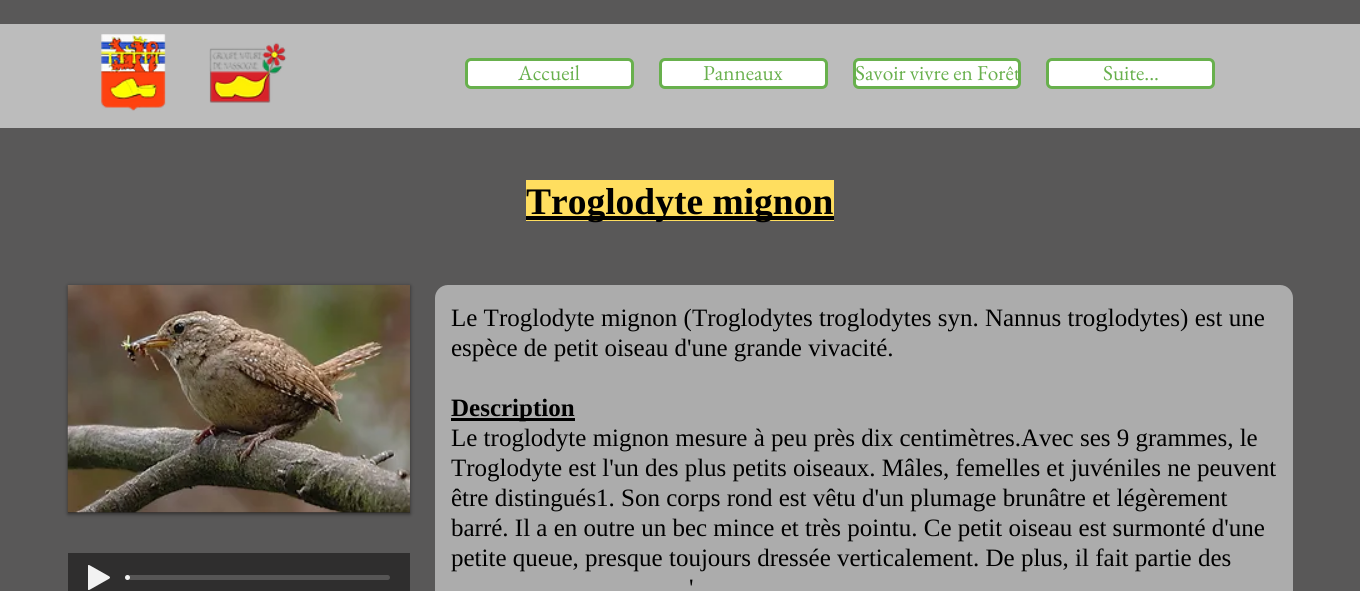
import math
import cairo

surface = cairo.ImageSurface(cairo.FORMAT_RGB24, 1360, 591)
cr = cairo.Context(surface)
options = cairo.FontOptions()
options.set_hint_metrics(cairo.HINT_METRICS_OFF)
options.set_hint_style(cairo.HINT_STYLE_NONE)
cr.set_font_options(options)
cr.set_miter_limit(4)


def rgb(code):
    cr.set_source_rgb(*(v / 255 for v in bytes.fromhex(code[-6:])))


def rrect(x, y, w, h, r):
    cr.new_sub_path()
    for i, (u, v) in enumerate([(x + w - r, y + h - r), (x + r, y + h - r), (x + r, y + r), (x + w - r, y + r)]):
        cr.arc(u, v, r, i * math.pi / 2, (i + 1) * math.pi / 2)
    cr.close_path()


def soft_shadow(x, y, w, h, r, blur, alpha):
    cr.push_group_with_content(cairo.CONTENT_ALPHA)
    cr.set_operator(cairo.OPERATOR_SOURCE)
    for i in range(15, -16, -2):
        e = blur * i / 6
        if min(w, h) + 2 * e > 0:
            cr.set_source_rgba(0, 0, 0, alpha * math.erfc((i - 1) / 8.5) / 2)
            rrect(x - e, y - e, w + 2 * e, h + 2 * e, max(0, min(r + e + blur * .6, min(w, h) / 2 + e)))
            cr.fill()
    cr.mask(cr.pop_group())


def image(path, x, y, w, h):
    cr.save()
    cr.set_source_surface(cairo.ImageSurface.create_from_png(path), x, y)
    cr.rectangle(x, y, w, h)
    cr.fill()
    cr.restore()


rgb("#595858")
cr.paint()
rgb("#bcbcbc")
cr.rectangle(0, 24, 1360, 104)
cr.fill()
image("img/1.png", 101, 34, 65, 77)
image("img/2.png", 209, 42, 78, 61)
rgb("#ffffff")
rrect(466.5, 59.5, 166, 28, 4.5)
cr.fill_preserve()
rgb("#68b04d")
cr.set_line_width(3)
cr.stroke()
rgb("#ffffff")
rrect(660.5, 59.5, 166, 28, 4.5)
cr.fill_preserve()
rgb("#68b04d")
cr.stroke()
rgb("#ffffff")
rrect(854.5, 59.5, 165, 28, 4.5)
cr.fill_preserve()
rgb("#68b04d")
cr.stroke()
rgb("#ffffff")
rrect(1047.5, 59.5, 166, 28, 4.5)
cr.fill_preserve()
rgb("#68b04d")
cr.stroke()
rgb("#ffde5f")
cr.rectangle(526, 180, 308, 41)
cr.fill()
rgb("#000000")
cr.rectangle(526, 216, 308, 4)
cr.fill()
rgb("#000000")
soft_shadow(68, 286, 342, 228, 0, 2, 0.5)
rgb("#2f2e2e")
cr.rectangle(68, 512, 342, 1)
cr.fill()
image("img/3.png", 67, 285, 343, 228)
rgb("#acacac")
rrect(435, 285, 858, 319, 13)
cr.fill()
rgb("#000000")
cr.rectangle(451, 418, 124, 3)
cr.fill()
rgb("#2f2e2e")
cr.rectangle(68, 553, 342, 38)
cr.fill()
image("img/4.png", 88, 565, 22, 25)
rgb("#565555")
rrect(128, 575, 262, 5, 2.5)
cr.fill()
rgb("#f2f2f2")
cr.arc(127.5, 577.5, 2.5, 0, 2 * math.pi)
cr.fill()
cr.select_font_face("EB Garamond")
cr.set_font_size(21.25)
rgb("#68b04d")
for x, y, s in [
    (518, 80, "Accueil"),
    (703, 80, "Panneaux"),
    (855, 80, "Savoir vivre en Forêt"),
    (1103, 80, "Suite..."),
]:
    cr.move_to(x, y)
    cr.show_text(s)
cr.select_font_face("Liberation Serif", cairo.FONT_SLANT_NORMAL, cairo.FONT_WEIGHT_BOLD)
cr.set_font_size(37.5)
rgb("#000000")
cr.move_to(526, 214)
cr.show_text("Troglodyte mignon")
cr.select_font_face("Liberation Serif")
cr.set_font_size(25)
cr.move_to(451, 326)
cr.show_text("Le Troglodyte mignon (Troglodytes troglodytes syn. Nannus troglodytes) est une")
cr.move_to(451, 356)
cr.show_text("espèce de petit oiseau d'une grande vivacité.")
cr.select_font_face("Liberation Serif", cairo.FONT_SLANT_NORMAL, cairo.FONT_WEIGHT_BOLD)
cr.move_to(451, 416)
cr.show_text("Description")
cr.select_font_face("Liberation Serif")
for x, y, s in [
    (451, 446, "Le troglodyte mignon mesure à peu près dix centimètres.Avec ses 9 grammes, le"),
    (451, 476, "Troglodyte est l'un des plus petits oiseaux. Mâles, femelles et juvéniles ne peuvent"),
    (451, 506, "être distingués1. Son corps rond est vêtu d'un plumage brunâtre et légèrement"),
    (451, 536, "barré. Il a en outre un bec mince et très pointu. Ce petit oiseau est surmonté d'une"),
    (451, 566, "petite queue, presque toujours dressée verticalement. De plus, il fait partie des"),
    (689, 596, "'"),
]:
    cr.move_to(x, y)
    cr.show_text(s)
surface.write_to_png("page.png")
